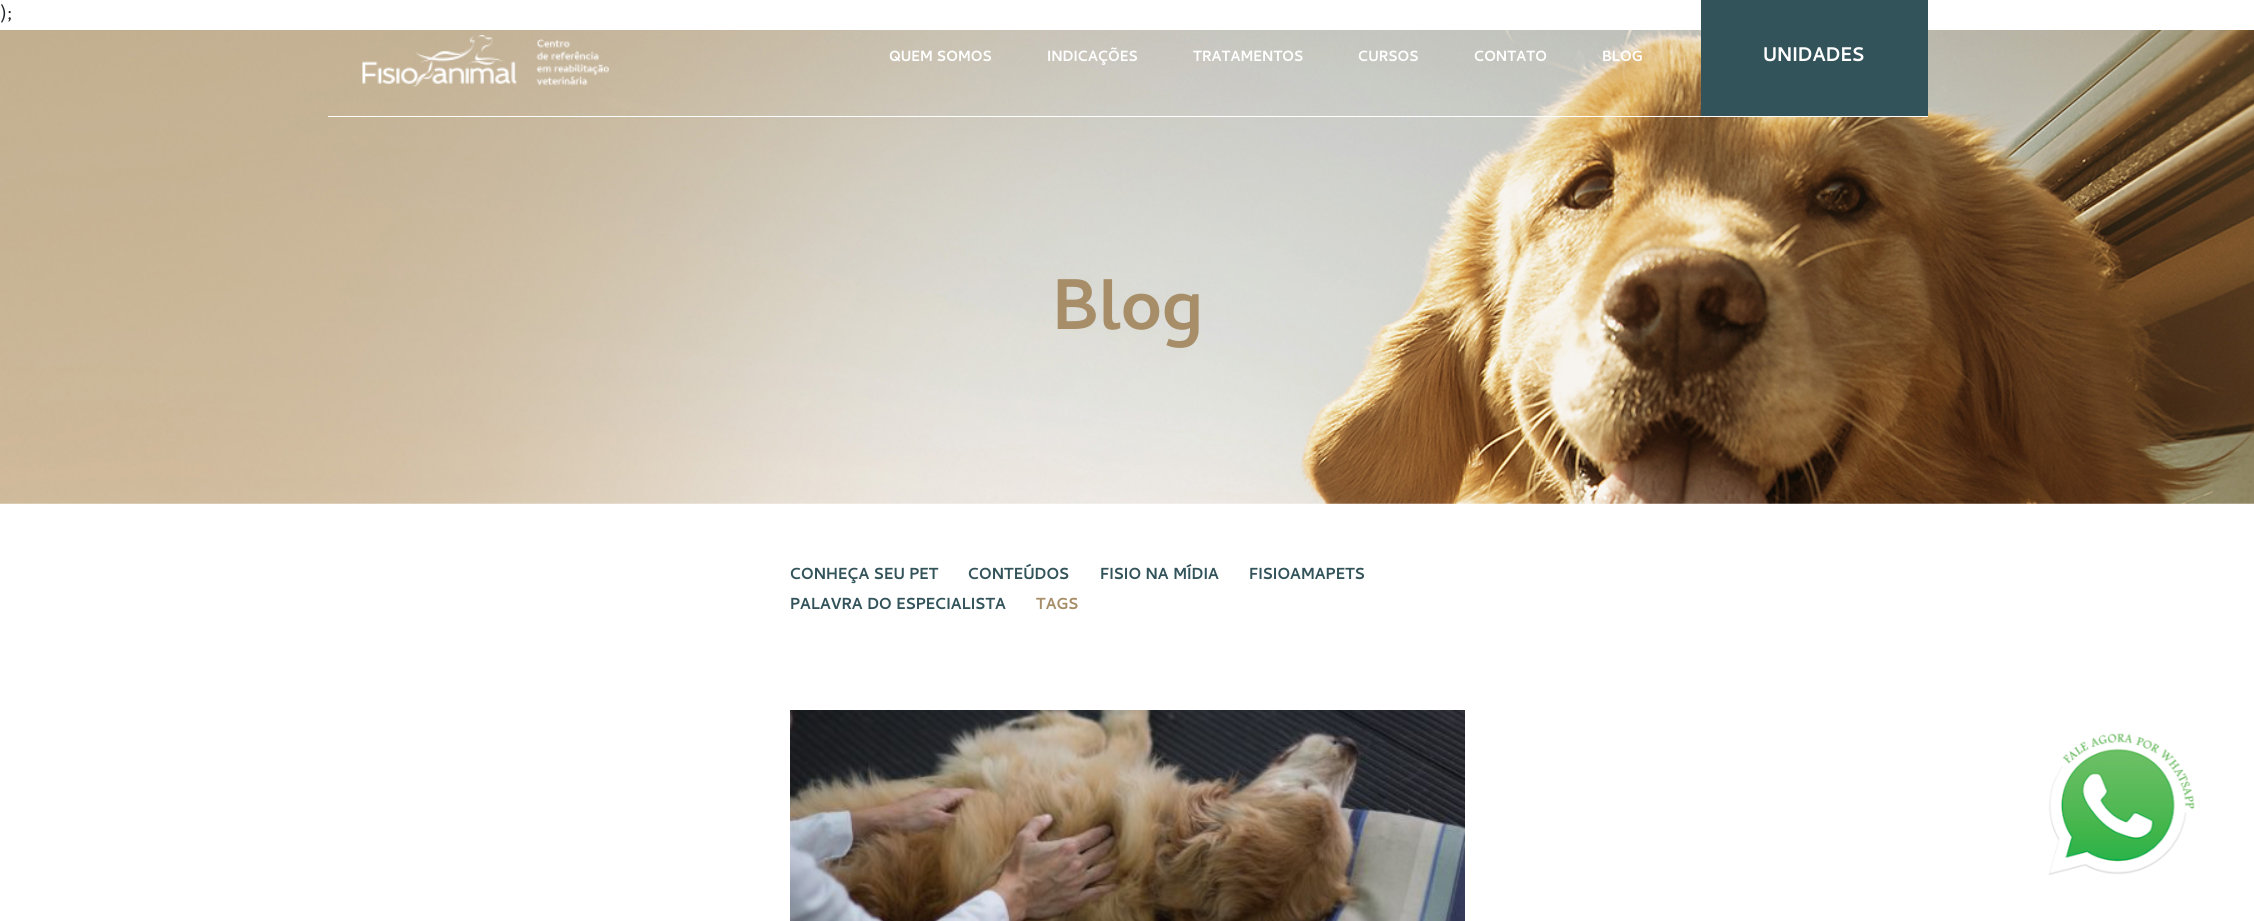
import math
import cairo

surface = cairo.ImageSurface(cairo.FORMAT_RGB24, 2254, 921)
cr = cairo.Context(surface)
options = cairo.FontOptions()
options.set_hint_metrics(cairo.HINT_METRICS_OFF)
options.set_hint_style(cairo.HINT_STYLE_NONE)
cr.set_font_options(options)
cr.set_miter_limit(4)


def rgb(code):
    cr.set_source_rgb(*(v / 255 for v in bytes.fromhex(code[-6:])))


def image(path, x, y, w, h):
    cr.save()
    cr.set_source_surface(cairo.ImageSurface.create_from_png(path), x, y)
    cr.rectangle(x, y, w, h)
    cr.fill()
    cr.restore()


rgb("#ffffff")
cr.paint()
image("img/2.png", 0, 30, 2254, 474)
rgb("#ffffff")
cr.rectangle(328, 116, 1600, 1)
cr.fill()
image("img/1.png", 362, 35, 247, 52)
rgb("#33535b")
cr.rectangle(1701, 0, 227, 116)
cr.fill()
image("img/3.png", 790, 710, 675, 211)
image("img/4.png", 2048, 733, 147, 142)
cr.select_font_face("Cambay")
cr.set_font_size(20)
rgb("#212529")
cr.move_to(0, 19)
cr.show_text(");")
cr.select_font_face("Cambay", cairo.FONT_SLANT_NORMAL, cairo.FONT_WEIGHT_BOLD)
cr.set_font_size(15)
rgb("#ffffff")
for x, y, s in [
    (889, 61, "QUEM SOMOS"),
    (1047, 61, "INDICAÇÕES"),
    (1193, 61, "TRATAMENTOS"),
    (1358, 61, "CURSOS"),
    (1474, 61, "CONTATO"),
    (1602, 61, "BLOG"),
]:
    cr.move_to(x, y)
    cr.show_text(s)
cr.set_font_size(20)
cr.move_to(1763, 61)
cr.show_text("UNIDADES")
cr.set_font_size(72.5)
rgb("#a78e69")
cr.move_to(1052, 329)
cr.show_text("Blog")
cr.set_font_size(16.25)
rgb("#33535b")
for x, y, s in [
    (790, 579, "CONHEÇA SEU PET"),
    (968, 579, "CONTEÚDOS"),
    (1100, 579, "FISIO NA MÍDIA"),
    (1249, 579, "FISIOAMAPETS"),
    (790, 609, "PALAVRA DO ESPECIALISTA"),
]:
    cr.move_to(x, y)
    cr.show_text(s)
rgb("#a78e69")
cr.move_to(1036, 609)
cr.show_text("TAGS")
surface.write_to_png("page.png")
